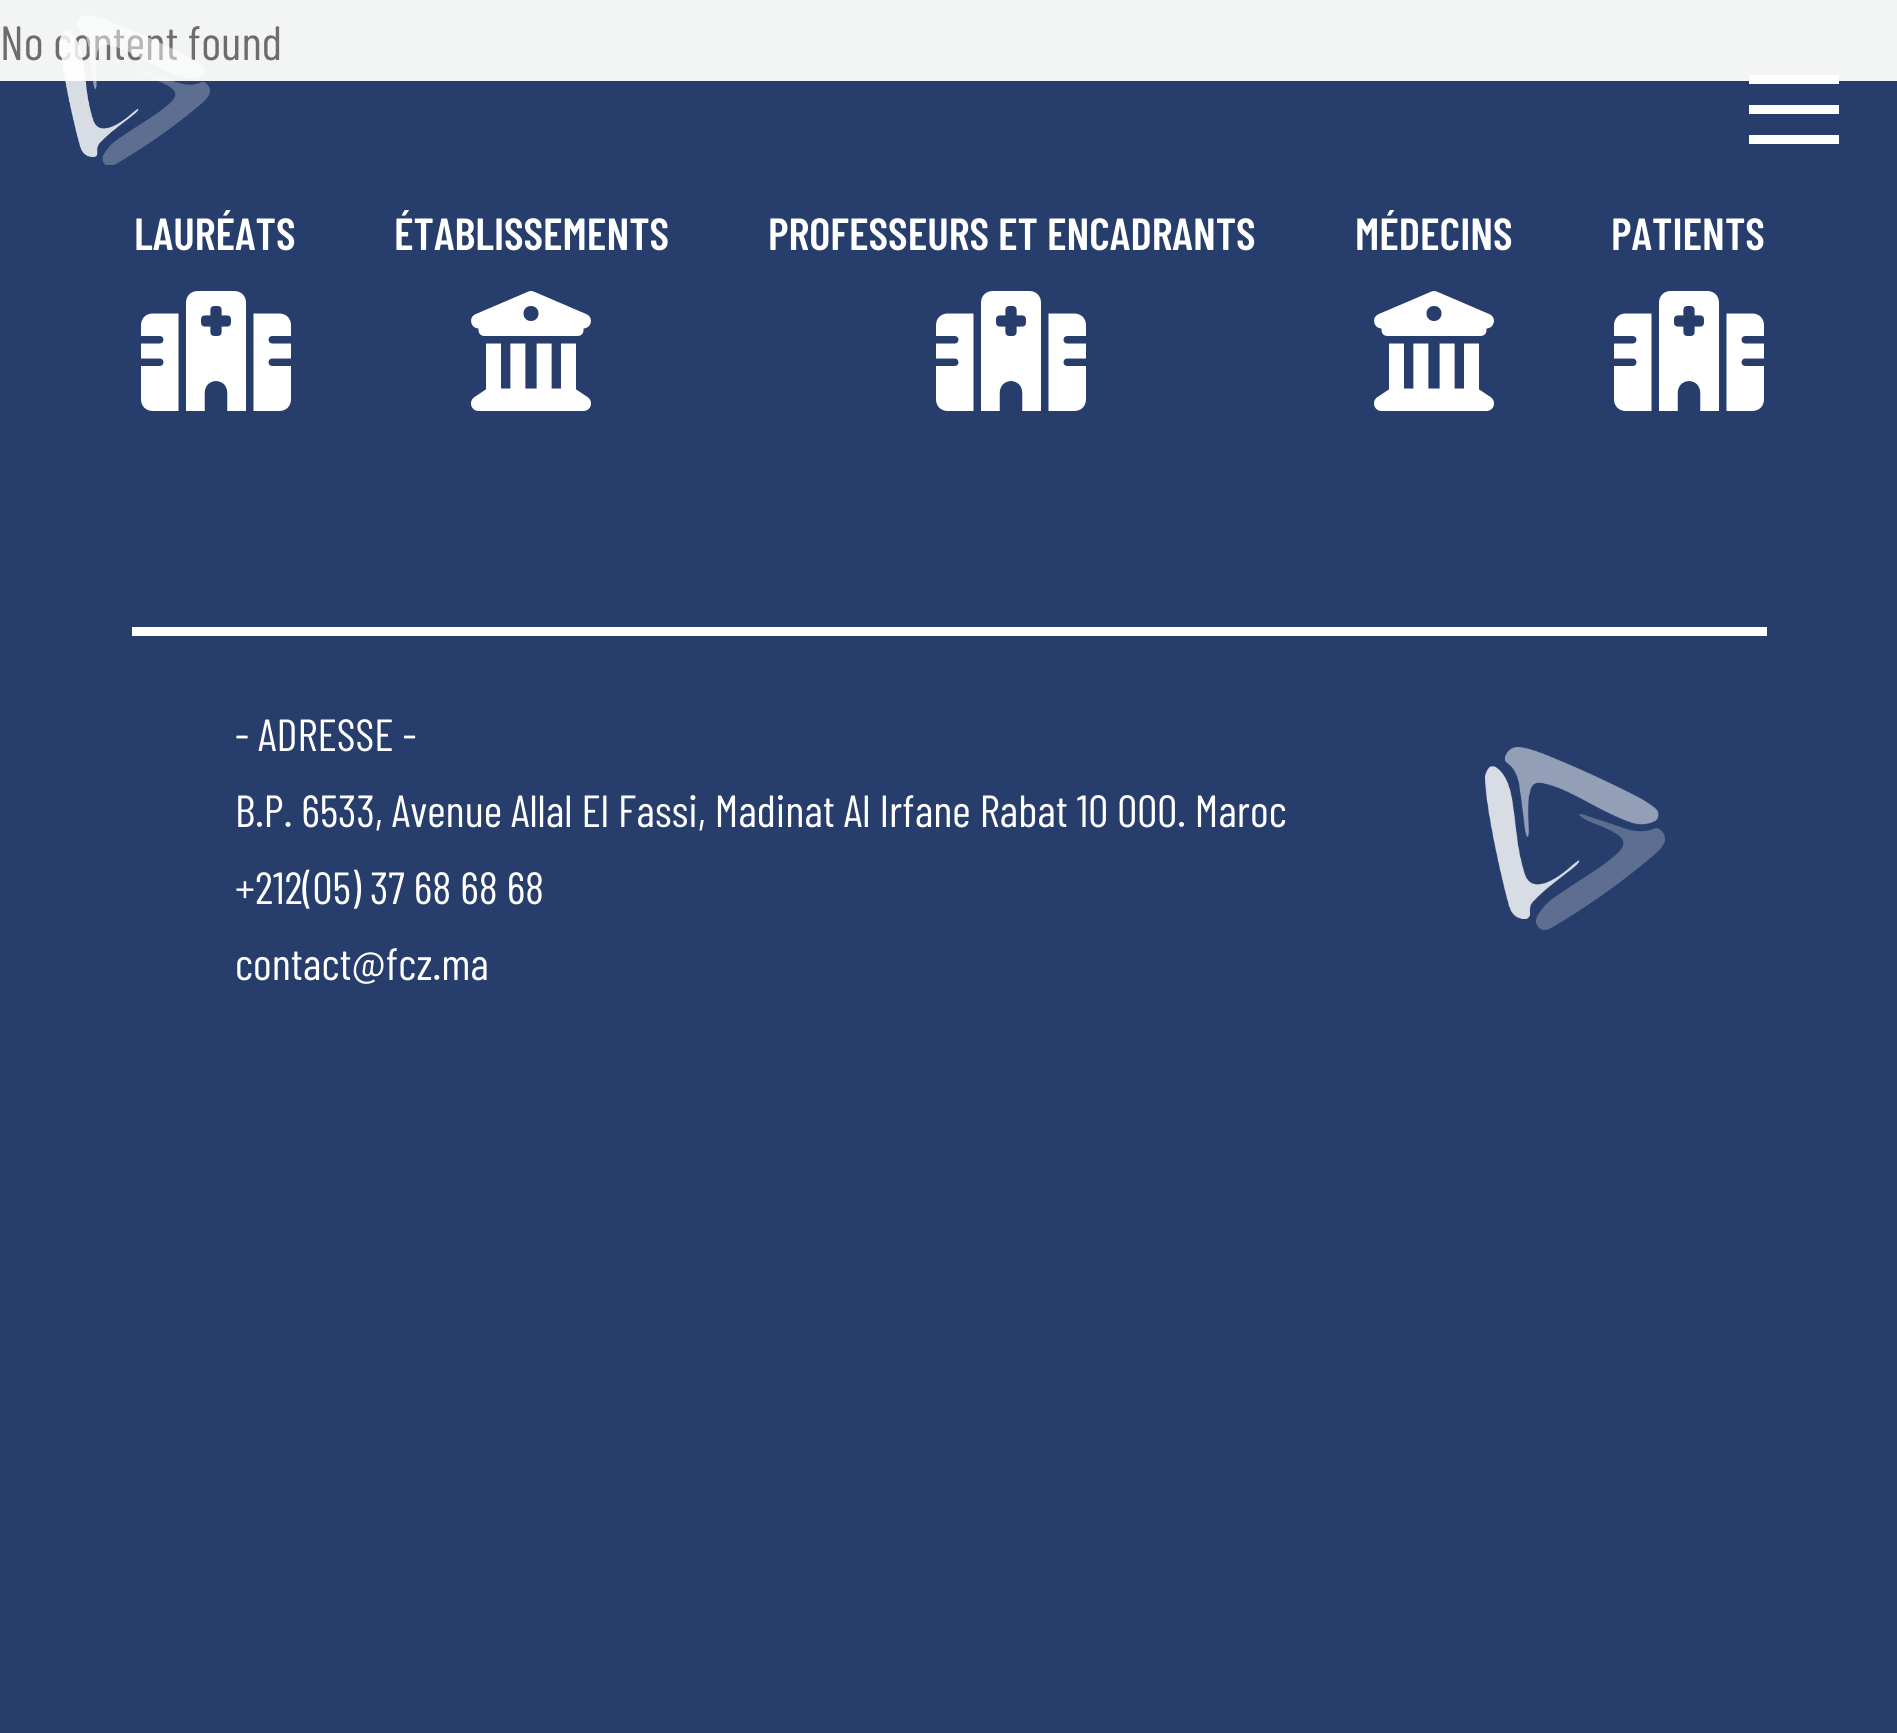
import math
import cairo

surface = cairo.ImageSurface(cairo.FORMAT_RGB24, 1897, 1733)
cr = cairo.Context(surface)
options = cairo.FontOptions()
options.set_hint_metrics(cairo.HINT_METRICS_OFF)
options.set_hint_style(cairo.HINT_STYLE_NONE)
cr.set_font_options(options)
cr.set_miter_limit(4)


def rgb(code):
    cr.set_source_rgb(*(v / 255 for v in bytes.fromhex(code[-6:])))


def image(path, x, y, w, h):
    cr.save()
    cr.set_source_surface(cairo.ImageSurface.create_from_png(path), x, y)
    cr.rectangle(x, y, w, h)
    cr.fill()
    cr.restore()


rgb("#f3f4f4")
cr.paint()
for x, y, w, h, color in [
    (0, 81, 1897, 1652, "#273e6c"),
    (1749, 105, 90, 9, "#ffffff"),
    (1749, 75, 90, 9, "#ffffff"),
    (1749, 135, 90, 9, "#ffffff"),
]:
    rgb(color)
    cr.rectangle(x, y, w, h)
    cr.fill()
image("img/2.png", 141, 291, 150, 120)
image("img/3.png", 471, 291, 120, 120)
image("img/2.png", 936, 291, 150, 120)
image("img/3.png", 1374, 291, 120, 120)
image("img/2.png", 1614, 291, 150, 120)
cr.rectangle(132, 627, 1635, 9)
cr.fill()
image("img/4.png", 1485, 747, 180, 183)
cr.select_font_face("Barlow Condensed")
cr.set_font_size(48)
rgb("#6d6d6c")
cr.move_to(0, 60)
cr.show_text("No content found")
image("img/1.png", 60, 15, 150, 150)
cr.select_font_face("Barlow Condensed SemiBold")
cr.set_font_size(45)
rgb("#ffffff")
for x, y, s in [
    (134, 250, "LAURÉATS"),
    (394, 250, "ÉTABLISSEMENTS"),
    (768, 250, "PROFESSEURS ET ENCADRANTS"),
    (1355, 250, "MÉDECINS"),
    (1611, 250, "PATIENTS"),
]:
    cr.move_to(x, y)
    cr.show_text(s)
cr.select_font_face("Barlow Condensed")
for x, y, s in [
    (235, 751, "- ADRESSE -"),
    (235, 827, "B.P. 6533, Avenue Allal El Fassi, Madinat Al Irfane Rabat 10 000. Maroc"),
    (235, 904, "+212(05) 37 68 68 68"),
    (235, 980, "contact@fcz.ma"),
]:
    cr.move_to(x, y)
    cr.show_text(s)
surface.write_to_png("page.png")
